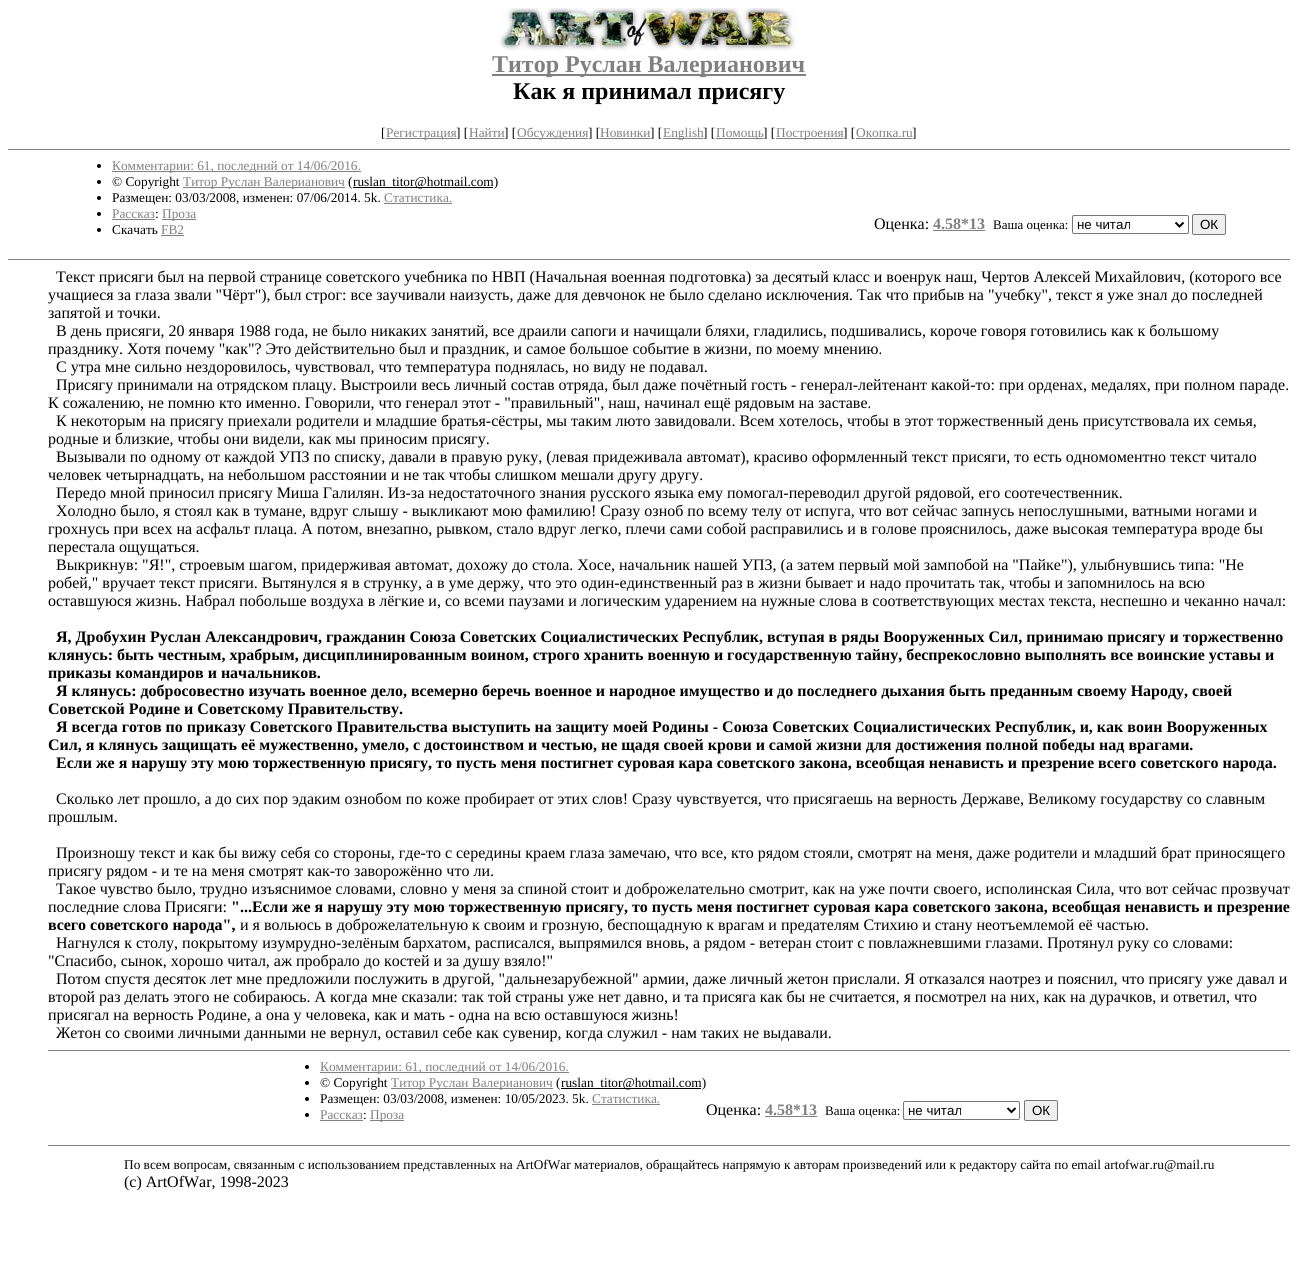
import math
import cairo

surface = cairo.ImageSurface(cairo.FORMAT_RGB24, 1298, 1282)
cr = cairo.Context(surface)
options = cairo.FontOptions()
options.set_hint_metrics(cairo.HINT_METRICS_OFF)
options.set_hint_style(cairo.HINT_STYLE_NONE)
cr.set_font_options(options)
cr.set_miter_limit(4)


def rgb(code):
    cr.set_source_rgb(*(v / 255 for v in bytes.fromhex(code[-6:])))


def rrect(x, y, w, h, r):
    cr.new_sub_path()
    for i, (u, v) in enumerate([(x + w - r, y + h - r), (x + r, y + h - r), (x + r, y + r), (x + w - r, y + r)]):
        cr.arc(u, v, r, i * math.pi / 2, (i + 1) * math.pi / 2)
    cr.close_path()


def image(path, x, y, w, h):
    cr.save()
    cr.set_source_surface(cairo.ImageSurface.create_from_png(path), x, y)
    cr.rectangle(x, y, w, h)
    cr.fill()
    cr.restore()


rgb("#ffffff")
cr.paint()
image("img/1.png", 499, 8, 299, 43)
for x, y, w, h, color in [
    (492, 74, 314, 2, "#808080"),
    (386, 138, 70, 1, "#808080"),
    (469, 138, 35, 1, "#808080"),
    (517, 138, 71, 1, "#808080"),
    (600, 138, 50, 1, "#808080"),
    (663, 138, 40, 1, "#808080"),
    (716, 138, 47, 1, "#808080"),
    (776, 138, 67, 1, "#808080"),
    (856, 138, 56, 1, "#808080"),
    (8, 149, 1282, 1, "#808080"),
]:
    rgb(color)
    cr.rectangle(x, y, w, h)
    cr.fill()
rgb("#000000")
cr.arc(99, 166, 2, 0, 2 * math.pi)
cr.fill()
rgb("#808080")
cr.rectangle(112, 171, 249, 1)
cr.fill()
rgb("#000000")
cr.arc(99, 182, 2, 0, 2 * math.pi)
cr.fill()
rgb("#808080")
cr.rectangle(183, 187, 162, 1)
cr.fill()
rgb("#000000")
cr.rectangle(353, 187, 140, 1)
cr.fill()
cr.arc(99, 198, 2, 0, 2 * math.pi)
cr.fill()
rgb("#808080")
cr.rectangle(384, 203, 68, 1)
cr.fill()
rgb("#000000")
cr.arc(99, 214, 2, 0, 2 * math.pi)
cr.fill()
rgb("#808080")
cr.rectangle(112, 219, 43, 1)
cr.fill()
cr.rectangle(162, 219, 34, 1)
cr.fill()
rgb("#000000")
cr.arc(99, 230, 2, 0, 2 * math.pi)
cr.fill()
rgb("#808080")
cr.rectangle(161, 235, 23, 1)
cr.fill()
cr.rectangle(933, 230, 52, 1)
cr.fill()
rrect(1072.5, 215.5, 116, 18, 1.5)
rgb("#767676")
cr.set_line_width(1)
cr.stroke()
cr.new_path()
cr.move_to(1175.5, 222.5)
cr.line_to(1179.5, 226.5)
cr.line_to(1183.5, 222.5)
rgb("#000000")
cr.set_line_width(2)
cr.stroke()
rgb("#efefef")
rrect(1192.5, 214.5, 33, 20, 1.5)
cr.fill_preserve()
rgb("#767676")
cr.set_line_width(1)
cr.stroke()
rgb("#808080")
cr.rectangle(8, 259, 1282, 1)
cr.fill()
cr.rectangle(48, 1050, 1242, 1)
cr.fill()
rgb("#000000")
cr.arc(307, 1067, 2, 0, 2 * math.pi)
cr.fill()
rgb("#808080")
cr.rectangle(320, 1072, 249, 1)
cr.fill()
rgb("#000000")
cr.arc(307, 1083, 2, 0, 2 * math.pi)
cr.fill()
rgb("#808080")
cr.rectangle(391, 1088, 162, 1)
cr.fill()
rgb("#000000")
cr.rectangle(561, 1088, 140, 1)
cr.fill()
cr.arc(307, 1099, 2, 0, 2 * math.pi)
cr.fill()
rgb("#808080")
cr.rectangle(592, 1104, 68, 1)
cr.fill()
rgb("#000000")
cr.arc(307, 1115, 2, 0, 2 * math.pi)
cr.fill()
for x, y, w, h, color in [
    (320, 1120, 43, 1, "#808080"),
    (370, 1120, 34, 1, "#808080"),
    (765, 1116, 52, 1, "#808080"),
]:
    rgb(color)
    cr.rectangle(x, y, w, h)
    cr.fill()
rrect(903.5, 1101.5, 116, 18, 1.5)
rgb("#767676")
cr.stroke()
cr.new_path()
cr.move_to(1007.5, 1108)
cr.line_to(1011.5, 1112)
cr.line_to(1015.5, 1108)
rgb("#000000")
cr.set_line_width(2)
cr.stroke()
rgb("#efefef")
rrect(1024.5, 1100.5, 33, 20, 1.5)
cr.fill_preserve()
rgb("#767676")
cr.set_line_width(1)
cr.stroke()
rgb("#808080")
cr.rectangle(48, 1145, 1242, 1)
cr.fill()
cr.select_font_face("Liberation Serif", cairo.FONT_SLANT_NORMAL, cairo.FONT_WEIGHT_BOLD)
cr.set_font_size(24)
cr.move_to(492, 72)
cr.show_text("Титор Руслан Валерианович")
rgb("#000000")
cr.move_to(513, 99)
cr.show_text("Как я принимал присягу")
cr.select_font_face("Liberation Serif")
cr.set_font_size(13.33)
cr.move_to(381, 137)
cr.show_text("[")
rgb("#808080")
cr.move_to(386, 137)
cr.show_text("Регистрация")
rgb("#000000")
cr.move_to(456, 137)
cr.show_text("] [")
rgb("#808080")
cr.move_to(469, 137)
cr.show_text("Найти")
rgb("#000000")
cr.move_to(504, 137)
cr.show_text("] [")
rgb("#808080")
cr.move_to(517, 137)
cr.show_text("Обсуждения")
rgb("#000000")
cr.move_to(588, 137)
cr.show_text("] [")
rgb("#808080")
cr.move_to(600, 137)
cr.show_text("Новинки")
rgb("#000000")
cr.move_to(650, 137)
cr.show_text("] [")
rgb("#808080")
cr.move_to(663, 137)
cr.show_text("English")
rgb("#000000")
cr.move_to(703, 137)
cr.show_text("] [")
rgb("#808080")
cr.move_to(716, 137)
cr.show_text("Помощь")
rgb("#000000")
cr.move_to(763, 137)
cr.show_text("] [")
rgb("#808080")
cr.move_to(776, 137)
cr.show_text("Построения")
rgb("#000000")
cr.move_to(843, 137)
cr.show_text("] [")
rgb("#808080")
cr.move_to(856, 137)
cr.show_text("Окопка.ru")
rgb("#000000")
cr.move_to(912, 137)
cr.show_text("]")
rgb("#808080")
cr.move_to(112, 170)
cr.show_text("Комментарии: 61, последний от 14/06/2016.")
rgb("#000000")
cr.move_to(112, 186)
cr.show_text("© Copyright")
rgb("#808080")
cr.move_to(183, 186)
cr.show_text("Титор Руслан Валерианович")
rgb("#000000")
for x, y, s in [
    (348, 186, "("),
    (353, 186, "ruslan_titor@hotmail.com)"),
    (112, 202, "Размещен: 03/03/2008, изменен: 07/06/2014. 5k."),
]:
    cr.move_to(x, y)
    cr.show_text(s)
rgb("#808080")
cr.move_to(384, 202)
cr.show_text("Статистика.")
cr.move_to(112, 218)
cr.show_text("Рассказ")
rgb("#000000")
cr.move_to(155, 218)
cr.show_text(":")
rgb("#808080")
cr.move_to(162, 218)
cr.show_text("Проза")
rgb("#000000")
cr.move_to(112, 234)
cr.show_text("Скачать")
rgb("#808080")
cr.move_to(161, 234)
cr.show_text("FB2")
cr.set_font_size(16)
rgb("#000000")
cr.move_to(874, 229)
cr.show_text("Оценка:")
cr.select_font_face("Liberation Serif", cairo.FONT_SLANT_NORMAL, cairo.FONT_WEIGHT_BOLD)
rgb("#808080")
cr.move_to(933, 229)
cr.show_text("4.58*13")
cr.select_font_face("Liberation Serif")
cr.set_font_size(13)
rgb("#000000")
cr.move_to(993, 229)
cr.show_text("Ваша оценка:")
cr.select_font_face("Liberation Sans")
cr.set_font_size(13.33)
cr.move_to(1077, 229)
cr.show_text("не читал")
cr.move_to(1200, 229)
cr.show_text("ОК")
cr.select_font_face("Liberation Serif")
cr.set_font_size(16)
for x, y, s in [
    (56, 282, "Текст присяги был на первой странице советского учебника по НВП (Начальная военная подготовка) за десятый класс и военрук наш, Чертов Алексей Михайлович, (которого все"),
    (48, 300, "учащиеся за глаза звали \"Чёрт\"), был строг: все заучивали наизусть, даже для девчонок не было сделано исключения. Так что прибыв на \"учебку\", текст я уже знал до последней"),
    (48, 318, "запятой и точки."),
    (56, 336, "В день присяги, 20 января 1988 года, не было никаких занятий, все драили сапоги и начищали бляхи, гладились, подшивались, короче говоря готовились как к большому"),
    (48, 354, "празднику. Хотя почему \"как\"? Это действительно был и праздник, и самое большое событие в жизни, по моему мнению."),
    (56, 372, "С утра мне сильно нездоровилось, чувствовал, что температура поднялась, но виду не подавал."),
    (56, 390, "Присягу принимали на отрядском плацу. Выстроили весь личный состав отряда, был даже почётный гость - генерал-лейтенант какой-то: при орденах, медалях, при полном параде."),
    (48, 408, "К сожалению, не помню кто именно. Говорили, что генерал этот - \"правильный\", наш, начинал ещё рядовым на заставе."),
    (56, 426, "К некоторым на присягу приехали родители и младшие братья-сёстры, мы таким люто завидовали. Всем хотелось, чтобы в этот торжественный день присутствовала их семья,"),
    (48, 444, "родные и близкие, чтобы они видели, как мы приносим присягу."),
    (56, 462, "Вызывали по одному от каждой УПЗ по списку, давали в правую руку, (левая придеживала автомат), красиво оформленный текст присяги, то есть одномоментно текст читало"),
    (48, 480, "человек четырнадцать, на небольшом расстоянии и не так чтобы слишком мешали другу другу."),
    (56, 498, "Передо мной приносил присягу Миша Галилян. Из-за недостаточного знания русского языка ему помогал-переводил другой рядовой, его соотечественник."),
    (56, 516, "Холодно было, я стоял как в тумане, вдруг слышу - выкликают мою фамилию! Сразу озноб по всему телу от испуга, что вот сейчас запнусь непослушными, ватными ногами и"),
    (48, 534, "грохнусь при всех на асфальт плаца. А потом, внезапно, рывком, стало вдруг легко, плечи сами собой расправились и в голове прояснилось, даже высокая температура вроде бы"),
    (48, 552, "перестала ощущаться."),
    (56, 570, "Выкрикнув: \"Я!\", строевым шагом, придерживая автомат, дохожу до стола. Хосе, начальник нашей УПЗ, (а затем первый мой зампобой на \"Пайке\"), улыбнувшись типа: \"Не"),
    (48, 588, "робей,\" вручает текст присяги. Вытянулся я в струнку, а в уме держу, что это один-единственный раз в жизни бывает и надо прочитать так, чтобы и запомнилось на всю"),
    (48, 606, "оставшуюся жизнь. Набрал побольше воздуха в лёгкие и, со всеми паузами и логическим ударением на нужные слова в соответствующих местах текста, неспешно и чеканно начал:"),
]:
    cr.move_to(x, y)
    cr.show_text(s)
cr.select_font_face("Liberation Serif", cairo.FONT_SLANT_NORMAL, cairo.FONT_WEIGHT_BOLD)
for x, y, s in [
    (56, 642, "Я, Дробухин Руслан Александрович, гражданин Союза Советских Социалистических Республик, вступая в ряды Вооруженных Сил, принимаю присягу и торжественно"),
    (48, 660, "клянусь: быть честным, храбрым, дисциплинированным воином, строго хранить военную и государственную тайну, беспрекословно выполнять все воинские уставы и"),
    (48, 678, "приказы командиров и начальников."),
    (56, 696, "Я клянусь: добросовестно изучать военное дело, всемерно беречь военное и народное имущество и до последнего дыхания быть преданным своему Народу, своей"),
    (48, 714, "Советской Родине и Советскому Правительству."),
    (56, 732, "Я всегда готов по приказу Советского Правительства выступить на защиту моей Родины - Союза Советских Социалистических Республик, и, как воин Вооруженных"),
    (48, 750, "Сил, я клянусь защищать её мужественно, умело, с достоинством и честью, не щадя своей крови и самой жизни для достижения полной победы над врагами."),
    (56, 768, "Если же я нарушу эту мою торжественную присягу, то пусть меня постигнет суровая кара советского закона, всеобщая ненависть и презрение всего советского народа."),
]:
    cr.move_to(x, y)
    cr.show_text(s)
cr.select_font_face("Liberation Serif")
for x, y, s in [
    (56, 804, "Сколько лет прошло, а до сих пор эдаким ознобом по коже пробирает от этих слов! Сразу чувствуется, что присягаешь на верность Державе, Великому государству со славным"),
    (48, 822, "прошлым."),
    (56, 858, "Произношу текст и как бы вижу себя со стороны, где-то с середины краем глаза замечаю, что все, кто рядом стояли, смотрят на меня, даже родители и младший брат приносящего"),
    (48, 876, "присягу рядом - и те на меня смотрят как-то заворожённо что ли."),
    (56, 894, "Такое чувство было, трудно изъяснимое словами, словно у меня за спиной стоит и доброжелательно смотрит, как на уже почти своего, исполинская Сила, что вот сейчас прозвучат"),
    (48, 912, "последние слова Присяги:"),
]:
    cr.move_to(x, y)
    cr.show_text(s)
cr.select_font_face("Liberation Serif", cairo.FONT_SLANT_NORMAL, cairo.FONT_WEIGHT_BOLD)
cr.move_to(231, 912)
cr.show_text("\"...Если же я нарушу эту мою торжественную присягу, то пусть меня постигнет суровая кара советского закона, всеобщая ненависть и презрение")
cr.move_to(48, 930)
cr.show_text("всего советского народа\",")
cr.select_font_face("Liberation Serif")
for x, y, s in [
    (240, 930, "и я вольюсь в доброжелательную к своим и грозную, беспощадную к врагам и предателям Стихию и стану неотъемлемой её частью."),
    (56, 948, "Нагнулся к столу, покрытому изумрудно-зелёным бархатом, расписался, выпрямился вновь, а рядом - ветеран стоит с повлажневшими глазами. Протянул руку со словами:"),
    (48, 966, "\"Спасибо, сынок, хорошо читал, аж пробрало до костей и за душу взяло!\""),
    (56, 984, "Потом спустя десяток лет мне предложили послужить в другой, \"дальнезарубежной\" армии, даже личный жетон прислали. Я отказался наотрез и пояснил, что присягу уже давал и"),
    (48, 1002, "второй раз делать этого не собираюсь. А когда мне сказали: так той страны уже нет давно, и та присяга как бы не считается, я посмотрел на них, как на дурачков, и ответил, что"),
    (48, 1020, "присягал на верность Родине, а она у человека, как и мать - одна на всю оставшуюся жизнь!"),
    (56, 1038, "Жетон со своими личными данными не вернул, оставил себе как сувенир, когда служил - нам таких не выдавали."),
]:
    cr.move_to(x, y)
    cr.show_text(s)
cr.set_font_size(13.33)
rgb("#808080")
cr.move_to(320, 1071)
cr.show_text("Комментарии: 61, последний от 14/06/2016.")
rgb("#000000")
cr.move_to(320, 1087)
cr.show_text("© Copyright")
rgb("#808080")
cr.move_to(391, 1087)
cr.show_text("Титор Руслан Валерианович")
rgb("#000000")
for x, y, s in [
    (556, 1087, "("),
    (561, 1087, "ruslan_titor@hotmail.com)"),
    (320, 1103, "Размещен: 03/03/2008, изменен: 10/05/2023. 5k."),
]:
    cr.move_to(x, y)
    cr.show_text(s)
rgb("#808080")
cr.move_to(592, 1103)
cr.show_text("Статистика.")
cr.move_to(320, 1119)
cr.show_text("Рассказ")
rgb("#000000")
cr.move_to(363, 1119)
cr.show_text(":")
rgb("#808080")
cr.move_to(370, 1119)
cr.show_text("Проза")
cr.set_font_size(16)
rgb("#000000")
cr.move_to(706, 1115)
cr.show_text("Оценка:")
cr.select_font_face("Liberation Serif", cairo.FONT_SLANT_NORMAL, cairo.FONT_WEIGHT_BOLD)
rgb("#808080")
cr.move_to(765, 1115)
cr.show_text("4.58*13")
cr.select_font_face("Liberation Serif")
cr.set_font_size(13)
rgb("#000000")
cr.move_to(825, 1115)
cr.show_text("Ваша оценка:")
cr.select_font_face("Liberation Sans")
cr.set_font_size(13.33)
cr.move_to(908, 1115)
cr.show_text("не читал")
cr.move_to(1032, 1115)
cr.show_text("ОК")
cr.select_font_face("Liberation Serif")
cr.move_to(124, 1169)
cr.show_text("По всем вопросам, связанным с использованием представленных на ArtOfWar материалов, обращайтесь напрямую к авторам произведений или к редактору сайта по email artofwar.ru@mail.ru")
cr.set_font_size(16)
cr.move_to(124, 1187)
cr.show_text("(с) ArtOfWar, 1998-2023")
surface.write_to_png("page.png")
